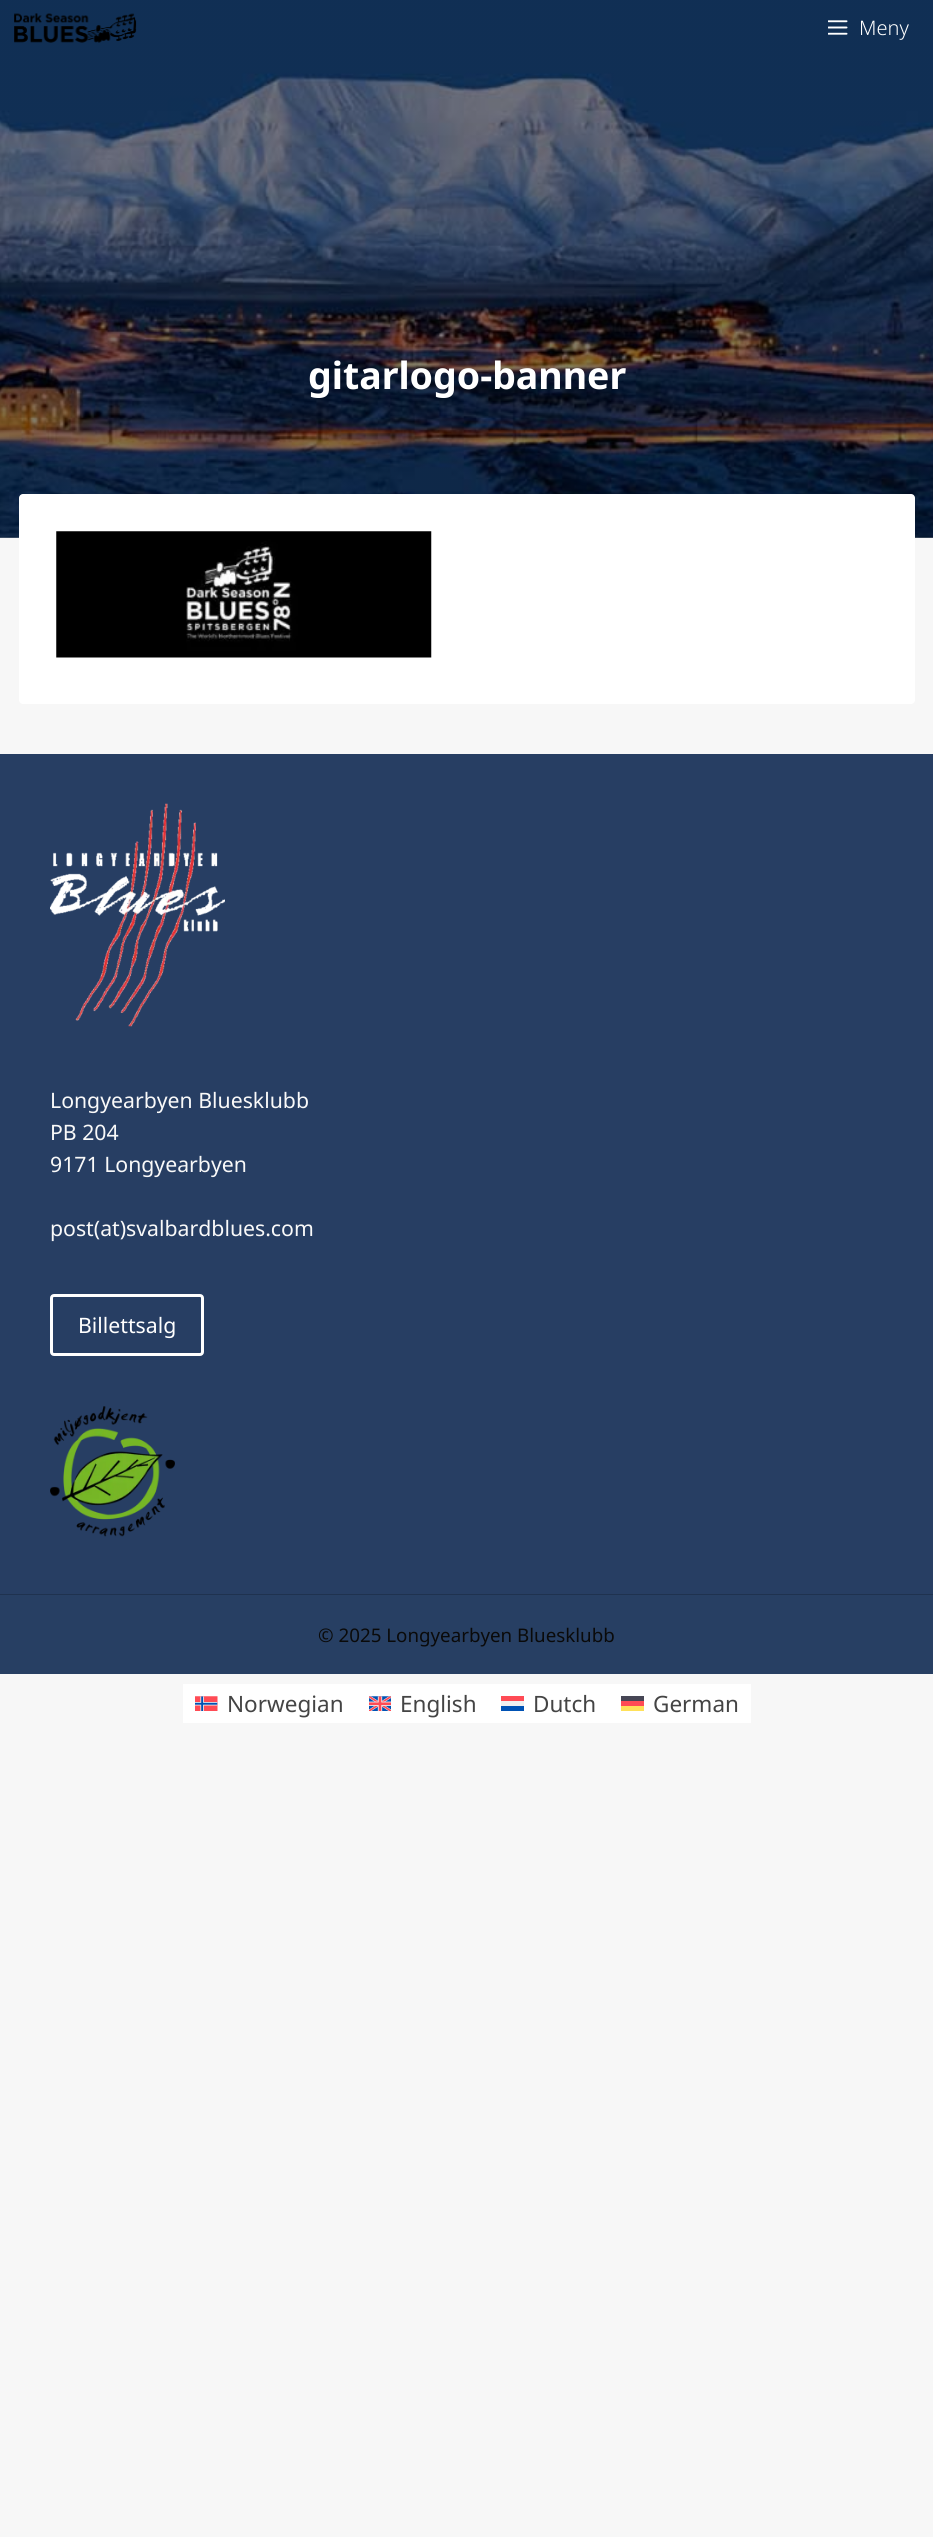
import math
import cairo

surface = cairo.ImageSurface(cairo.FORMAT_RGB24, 933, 2537)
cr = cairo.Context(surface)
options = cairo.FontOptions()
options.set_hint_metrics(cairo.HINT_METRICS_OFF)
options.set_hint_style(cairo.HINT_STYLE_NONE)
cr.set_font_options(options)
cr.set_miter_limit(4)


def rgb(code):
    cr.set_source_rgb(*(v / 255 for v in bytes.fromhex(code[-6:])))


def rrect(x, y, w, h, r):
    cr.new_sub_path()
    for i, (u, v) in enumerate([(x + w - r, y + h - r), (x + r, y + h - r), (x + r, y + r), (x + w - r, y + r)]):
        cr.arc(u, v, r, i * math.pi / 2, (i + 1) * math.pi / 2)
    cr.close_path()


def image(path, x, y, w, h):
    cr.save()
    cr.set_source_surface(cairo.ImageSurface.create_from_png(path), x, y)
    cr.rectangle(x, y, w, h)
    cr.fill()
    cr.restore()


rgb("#f7f7f7")
cr.paint()
rgb("#7e7e7e")
cr.rectangle(0, 537, 933, 1)
cr.fill()
image("img/3.png", 0, 0, 933, 538)
image("img/1.png", 14, 13, 123, 30)
image("img/2.png", 828, 20, 20, 15)
rgb("#ffffff")
rrect(19, 494, 896, 210, 4)
cr.fill()
image("img/4.png", 56, 531, 376, 127)
rgb("#273e63")
cr.rectangle(0, 754, 933, 840)
cr.fill()
image("img/5.png", 50, 803, 175, 224)
rrect(51.5, 1295.5, 151, 59, 2.5)
rgb("#ffffff")
cr.set_line_width(3)
cr.stroke()
image("img/6.png", 50, 1406, 125, 131)
for x, y, w, h, color in [
    (0, 1595, 933, 79, "#273f63"),
    (0, 1594, 933, 1, "#1f324f"),
    (183, 1684, 568, 39, "#ffffff"),
]:
    rgb(color)
    cr.rectangle(x, y, w, h)
    cr.fill()
image("img/7.png", 195, 1696, 23, 15)
image("img/8.png", 369, 1696, 22, 15)
for x, y, w, h, color in [
    (501, 1696, 23, 5, "#ff4b55"),
    (501, 1701, 23, 5, "#f0f0f0"),
    (501, 1706, 23, 5, "#0052b4"),
    (621, 1696, 23, 5, "#464655"),
    (621, 1701, 23, 5, "#ff4b55"),
    (621, 1706, 23, 5, "#ffe15a"),
]:
    rgb(color)
    cr.rectangle(x, y, w, h)
    cr.fill()
cr.select_font_face("Noto Sans Light")
cr.set_font_size(20)
rgb("#ffffff")
cr.move_to(859, 35)
cr.show_text("Meny")
cr.select_font_face("Noto Sans", cairo.FONT_SLANT_NORMAL, cairo.FONT_WEIGHT_BOLD)
cr.set_font_size(37.5)
cr.move_to(308, 389)
cr.show_text("gitarlogo-banner")
cr.select_font_face("Noto Sans")
cr.set_font_size(21.25)
rgb("#f9f9f9")
for x, y, s in [
    (50, 1108, "Longyearbyen Bluesklubb"),
    (50, 1140, "PB 204"),
    (50, 1172, "9171 Longyearbyen"),
    (50, 1236, "post(at)svalbardblues.com"),
]:
    cr.move_to(x, y)
    cr.show_text(s)
rgb("#ffffff")
cr.move_to(78, 1333)
cr.show_text("Billettsalg")
cr.set_font_size(18.75)
rgb("#0a0a0a")
cr.move_to(318, 1642)
cr.show_text("© 2025 Longyearbyen Bluesklubb")
cr.set_font_size(22.5)
rgb("#444444")
for x, y, s in [
    (227, 1712, "Norwegian"),
    (400, 1712, "English"),
    (533, 1712, "Dutch"),
    (653, 1712, "German"),
]:
    cr.move_to(x, y)
    cr.show_text(s)
surface.write_to_png("page.png")
